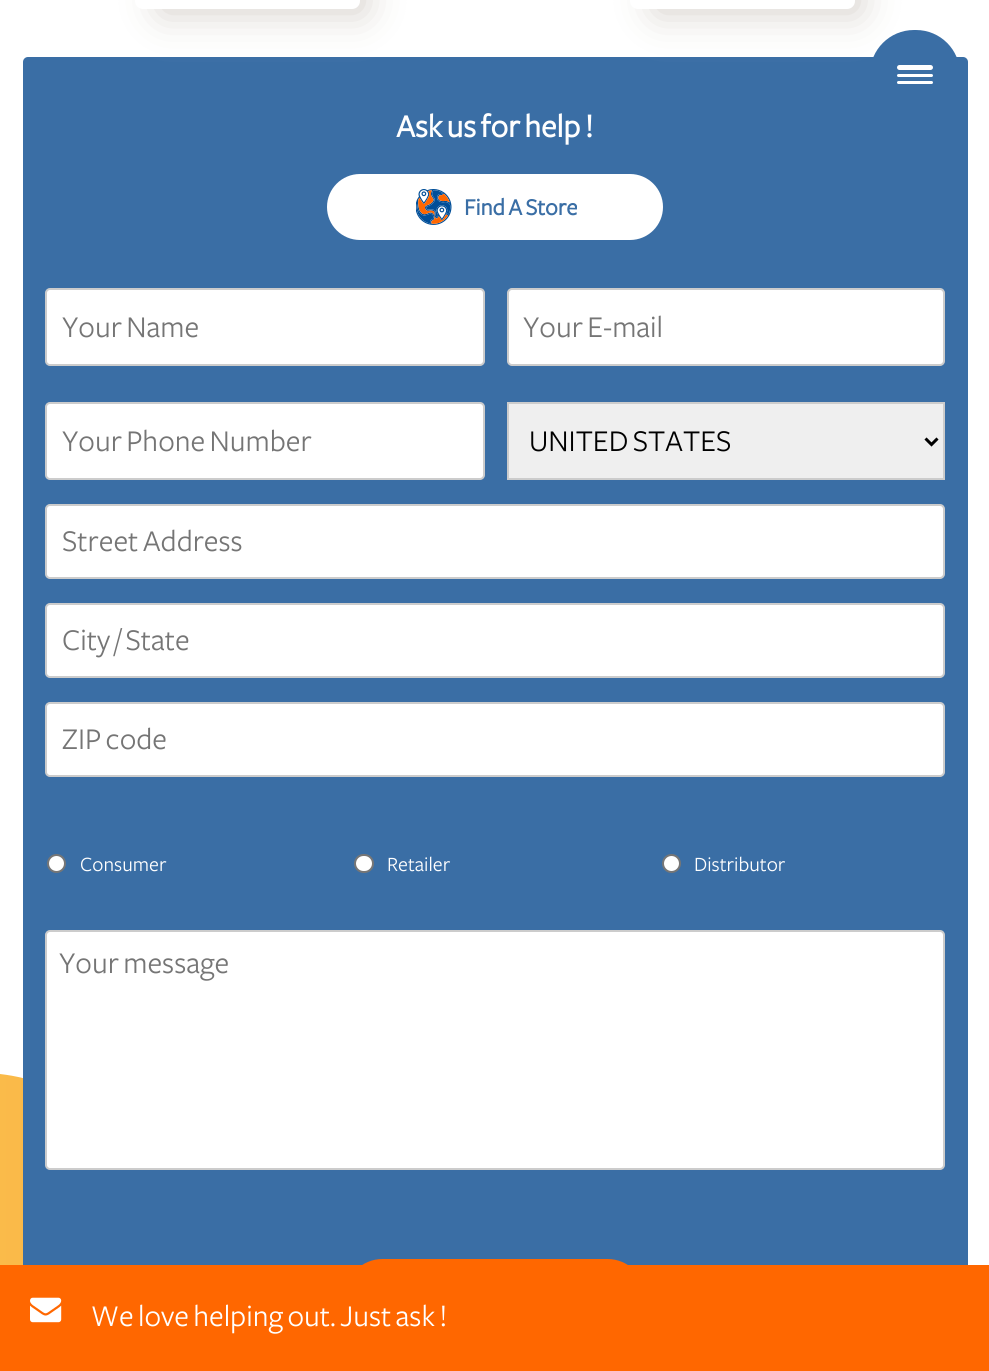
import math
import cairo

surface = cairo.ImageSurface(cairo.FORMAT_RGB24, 989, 1371)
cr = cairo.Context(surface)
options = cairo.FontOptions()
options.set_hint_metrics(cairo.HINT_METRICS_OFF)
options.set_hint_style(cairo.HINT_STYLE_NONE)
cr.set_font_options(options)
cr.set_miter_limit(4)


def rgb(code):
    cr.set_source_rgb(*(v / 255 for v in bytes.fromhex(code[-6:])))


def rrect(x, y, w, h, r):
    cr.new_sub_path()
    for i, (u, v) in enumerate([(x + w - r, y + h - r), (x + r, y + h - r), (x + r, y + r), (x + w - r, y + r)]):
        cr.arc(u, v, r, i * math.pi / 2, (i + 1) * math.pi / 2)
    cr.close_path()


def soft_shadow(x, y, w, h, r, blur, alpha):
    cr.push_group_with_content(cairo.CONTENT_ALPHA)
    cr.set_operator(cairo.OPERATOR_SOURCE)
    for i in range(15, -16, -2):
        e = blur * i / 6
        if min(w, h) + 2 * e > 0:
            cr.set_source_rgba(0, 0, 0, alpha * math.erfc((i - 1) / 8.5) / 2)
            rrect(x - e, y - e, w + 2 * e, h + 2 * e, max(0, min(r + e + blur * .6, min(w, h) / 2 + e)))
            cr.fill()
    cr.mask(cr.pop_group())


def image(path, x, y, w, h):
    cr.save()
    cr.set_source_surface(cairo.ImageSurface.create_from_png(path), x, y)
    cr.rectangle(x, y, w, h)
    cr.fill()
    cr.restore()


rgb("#ffffff")
cr.paint()
gradient = cairo.LinearGradient(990, 1259, 0, 1259)
gradient.add_color_stop_rgba(0, 1, 0.471, 0.11, 1)
gradient.add_color_stop_rgba(1, 0.98, 0.733, 0.29, 1)
cr.set_source(gradient)
cr.new_path()
cr.move_to(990, 1299)
cr.curve_to(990, 1299, 942, 1185, 780, 1185)
cr.curve_to(588, 1185, 518, 1269, 365, 1250)
cr.curve_to(152, 1223, 130, 1089, 0, 1074)
cr.line_to(0, 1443)
cr.line_to(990, 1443)
cr.close_path()
cr.fill()
rgb("#3a6ea5")
rrect(23, 57, 945, 1314, 5)
cr.fill()
rgb("#d4cec8")
soft_shadow(162, -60, 201, 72, 0, 20, 1)
rgb("#ffffff")
rrect(135, -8, 225, 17, 8)
cr.fill()
rgb("#d4cec8")
soft_shadow(657, -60, 201, 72, 0, 20, 1)
rgb("#ffffff")
rrect(630, -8, 225, 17, 8)
cr.fill()
rgb("#3a6ea5")
rrect(870, 30, 90, 90, 44)
cr.fill()
rgb("#ffffff")
rrect(897, 81, 36, 3, 1.5)
cr.fill()
rrect(897, 65, 36, 5, 2.5)
cr.fill()
rrect(897, 74, 36, 3, 1.5)
cr.fill()
rrect(327, 174, 336, 66, 33)
cr.fill()
image("img/1.png", 416, 189, 36, 36)
rrect(46, 289, 438, 76, 4)
cr.fill_preserve()
rgb("#cccccc")
cr.stroke()
rgb("#ffffff")
rrect(508, 289, 436, 76, 4)
cr.fill_preserve()
rgb("#cccccc")
cr.stroke()
rgb("#ffffff")
rrect(46, 403, 438, 76, 4)
cr.fill_preserve()
rgb("#cccccc")
cr.stroke()
rgb("#efefef")
cr.rectangle(508, 403, 436, 76)
cr.fill_preserve()
rgb("#cccccc")
cr.stroke()
cr.new_path()
cr.move_to(925.5, 438.5)
cr.line_to(931.5, 444.5)
cr.line_to(937.5, 438.5)
rgb("#000000")
cr.set_line_width(3)
cr.stroke()
rgb("#ffffff")
rrect(46, 505, 898, 73, 4)
cr.fill_preserve()
rgb("#cccccc")
cr.set_line_width(2)
cr.stroke()
rgb("#ffffff")
rrect(46, 604, 898, 73, 4)
cr.fill_preserve()
rgb("#cccccc")
cr.stroke()
rgb("#ffffff")
rrect(46, 703, 898, 73, 4)
cr.fill_preserve()
rgb("#cccccc")
cr.stroke()
rgb("#ffffff")
cr.arc(56.5, 863.5, 8.5, 0, 2 * math.pi)
cr.fill_preserve()
rgb("#767676")
cr.stroke()
rgb("#ffffff")
rrect(355, 855, 18, 17, 8.5)
cr.fill_preserve()
rgb("#767676")
cr.stroke()
rgb("#ffffff")
cr.arc(671.5, 863.5, 8.5, 0, 2 * math.pi)
cr.fill_preserve()
rgb("#767676")
cr.stroke()
rgb("#ffffff")
rrect(46, 931, 898, 238, 4)
cr.fill_preserve()
rgb("#cccccc")
cr.stroke()
rgb("#ff6700")
rrect(345, 1259, 300, 75, 37.5)
cr.fill()
cr.rectangle(0, 1265, 989, 106)
cr.fill()
image("img/2.png", 30, 1297, 32, 26)
cr.select_font_face("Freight", cairo.FONT_SLANT_NORMAL, cairo.FONT_WEIGHT_BOLD)
cr.set_font_size(33)
rgb("#ffffff")
cr.move_to(396, 137)
cr.show_text("Ask us for help !")
cr.set_font_size(24)
rgb("#3a6ea5")
cr.move_to(464, 215)
cr.show_text("Find A Store")
cr.select_font_face("Freight")
cr.set_font_size(31.25)
rgb("#757575")
for x, y, s in [
    (62, 337, "Your Name"),
    (523, 337, "Your E-mail"),
    (62, 451, "Your Phone Number"),
]:
    cr.move_to(x, y)
    cr.show_text(s)
rgb("#000000")
cr.move_to(529, 451)
cr.show_text("UNITED STATES")
rgb("#757575")
for x, y, s in [
    (62, 551, "Street Address"),
    (62, 650, "City / State"),
    (62, 749, "ZIP code"),
]:
    cr.move_to(x, y)
    cr.show_text(s)
cr.set_font_size(21)
rgb("#ffffff")
for x, y, s in [
    (80, 871, "Consumer"),
    (387, 871, "Retailer"),
    (694, 871, "Distributor"),
]:
    cr.move_to(x, y)
    cr.show_text(s)
cr.set_font_size(31.25)
rgb("#757575")
cr.move_to(59, 973)
cr.show_text("Your message")
rgb("#ffffff")
cr.move_to(91, 1326)
cr.show_text("We love helping out. Just ask !")
surface.write_to_png("page.png")
